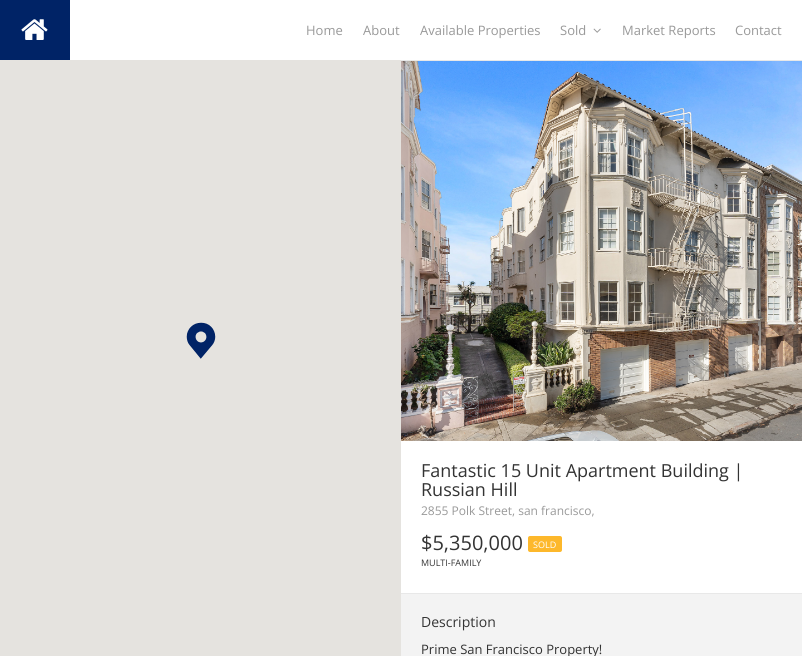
import math
import cairo

surface = cairo.ImageSurface(cairo.FORMAT_RGB24, 802, 656)
cr = cairo.Context(surface)
options = cairo.FontOptions()
options.set_hint_metrics(cairo.HINT_METRICS_OFF)
options.set_hint_style(cairo.HINT_STYLE_NONE)
cr.set_font_options(options)
cr.set_miter_limit(4)


def rgb(code):
    cr.set_source_rgb(*(v / 255 for v in bytes.fromhex(code[-6:])))


def rrect(x, y, w, h, r):
    cr.new_sub_path()
    for i, (u, v) in enumerate([(x + w - r, y + h - r), (x + r, y + h - r), (x + r, y + r), (x + w - r, y + r)]):
        cr.arc(u, v, r, i * math.pi / 2, (i + 1) * math.pi / 2)
    cr.close_path()


def image(path, x, y, w, h):
    cr.save()
    cr.set_source_surface(cairo.ImageSurface.create_from_png(path), x, y)
    cr.rectangle(x, y, w, h)
    cr.fill()
    cr.restore()


rgb("#ffffff")
cr.paint()
rgb("#002366")
cr.rectangle(0, 0, 70, 60)
cr.fill()
image("img/1.png", 21, 19, 27, 21)
image("img/2.png", 593, 28, 8, 5)
rgb("#e5e3df")
cr.rectangle(0, 60, 401, 596)
cr.fill()
image("img/3.png", 186, 322, 30, 37)
for x, y, w, h, color in [
    (401, 594, 401, 62, "#f3f3f3"),
    (401, 60, 401, 1, "#e8e8e8"),
    (401, 593, 401, 1, "#e8e8e8"),
]:
    rgb(color)
    cr.rectangle(x, y, w, h)
    cr.fill()
image("img/4.png", 401, 61, 401, 380)
rgb("#fdb82b")
rrect(528, 536, 34, 16, 2)
cr.fill()
cr.select_font_face("Open Sans")
cr.set_font_size(13)
rgb("#999999")
for x, y, s in [
    (306, 35, "Home"),
    (363, 35, "About"),
    (420, 35, "Available Properties"),
    (560, 35, "Sold"),
    (622, 35, "Market Reports"),
    (735, 35, "Contact"),
]:
    cr.move_to(x, y)
    cr.show_text(s)
cr.set_font_size(18)
rgb("#333333")
cr.move_to(421, 477)
cr.show_text("Fantastic 15 Unit Apartment Building |")
cr.move_to(421, 496)
cr.show_text("Russian Hill")
cr.set_font_size(12)
rgb("#999999")
cr.move_to(421, 515)
cr.show_text("2855 Polk Street, san francisco,")
cr.set_font_size(20)
rgb("#333333")
cr.move_to(421, 550)
cr.show_text("$5,350,000")
cr.set_font_size(9)
rgb("#ffffff")
cr.move_to(533, 548)
cr.show_text("SOLD")
rgb("#333333")
cr.move_to(421, 566)
cr.show_text("MULTI-FAMILY")
cr.set_font_size(14)
cr.move_to(421, 627)
cr.show_text("Description")
cr.set_font_size(13)
cr.move_to(421, 654)
cr.show_text("Prime San Francisco Property!")
surface.write_to_png("page.png")
